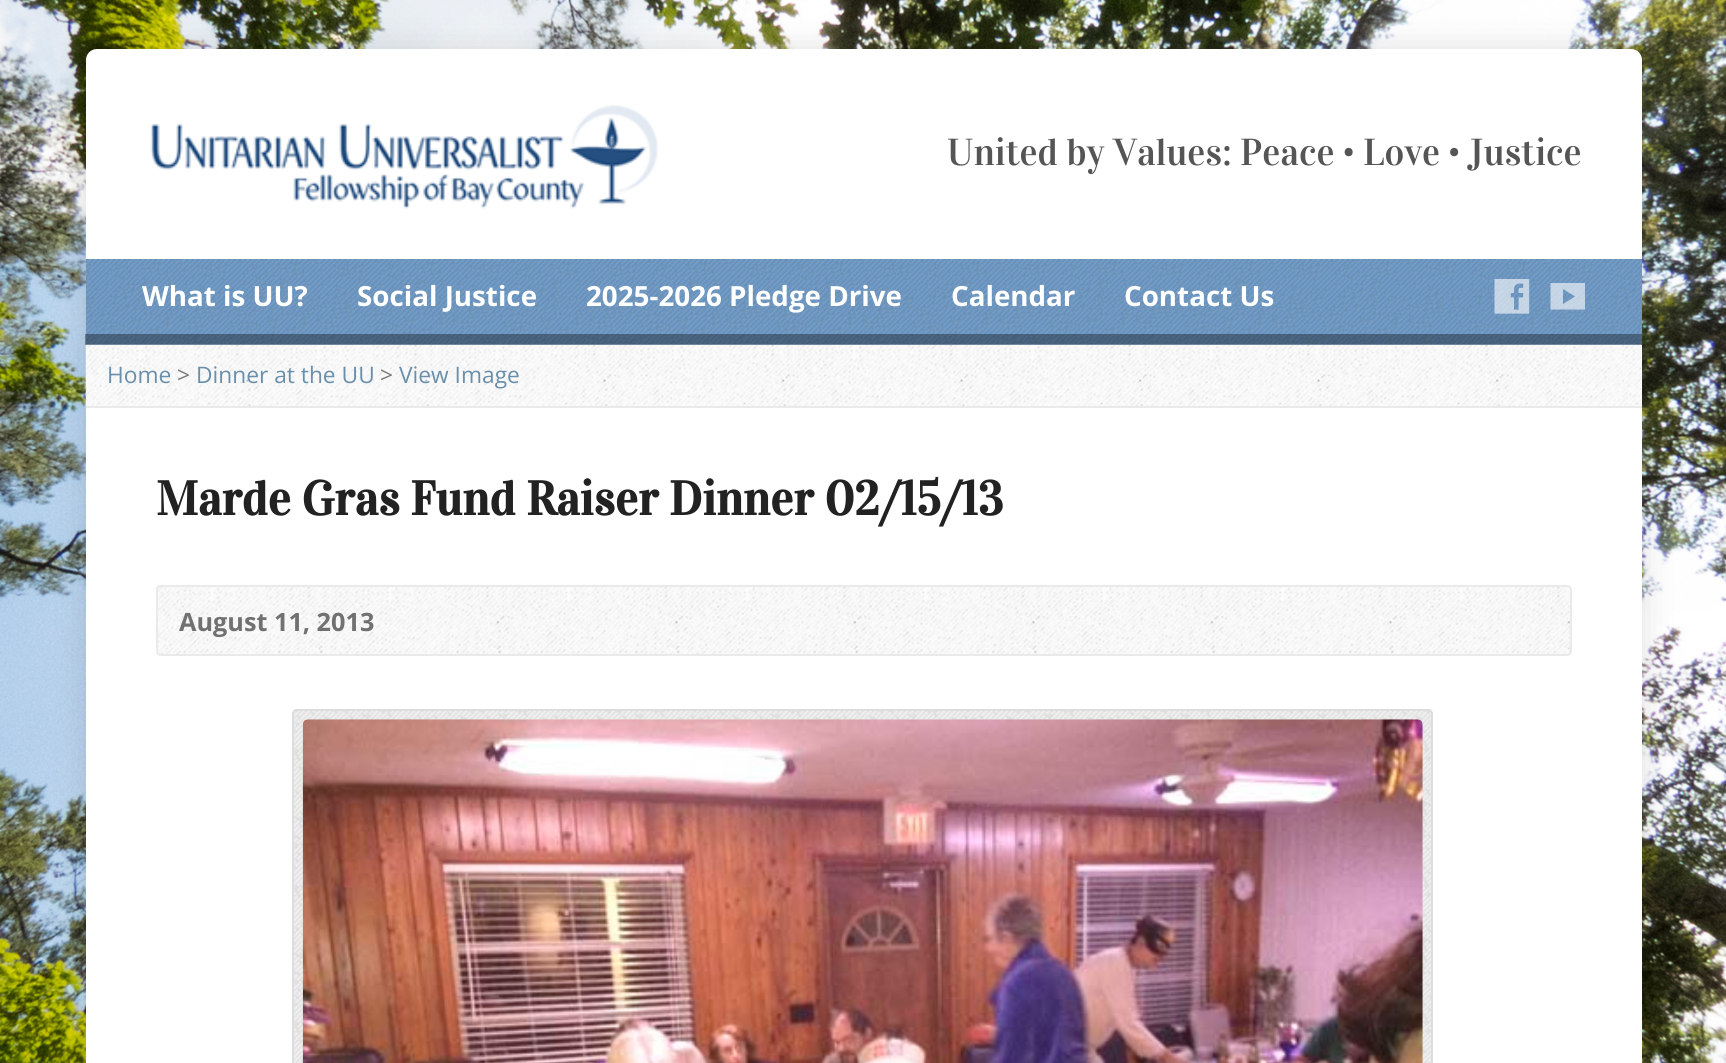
import math
import cairo

surface = cairo.ImageSurface(cairo.FORMAT_RGB24, 1726, 1063)
cr = cairo.Context(surface)
options = cairo.FontOptions()
options.set_hint_metrics(cairo.HINT_METRICS_OFF)
options.set_hint_style(cairo.HINT_STYLE_NONE)
cr.set_font_options(options)
cr.set_miter_limit(4)


def rgb(code):
    cr.set_source_rgb(*(v / 255 for v in bytes.fromhex(code[-6:])))


def rrect(x, y, w, h, r):
    cr.new_sub_path()
    for i, (u, v) in enumerate([(x + w - r, y + h - r), (x + r, y + h - r), (x + r, y + r), (x + w - r, y + r)]):
        cr.arc(u, v, r, i * math.pi / 2, (i + 1) * math.pi / 2)
    cr.close_path()


def soft_shadow(x, y, w, h, r, blur, alpha):
    cr.push_group_with_content(cairo.CONTENT_ALPHA)
    cr.set_operator(cairo.OPERATOR_SOURCE)
    for i in range(15, -16, -2):
        e = blur * i / 6
        if min(w, h) + 2 * e > 0:
            cr.set_source_rgba(0, 0, 0, alpha * math.erfc((i - 1) / 8.5) / 2)
            rrect(x - e, y - e, w + 2 * e, h + 2 * e, max(0, min(r + e + blur * .6, min(w, h) / 2 + e)))
            cr.fill()
    cr.mask(cr.pop_group())


def image(path, x, y, w, h):
    cr.save()
    cr.set_source_surface(cairo.ImageSurface.create_from_png(path), x, y)
    cr.rectangle(x, y, w, h)
    cr.fill()
    cr.restore()


rgb("#ffffff")
cr.paint()
image("img/1.png", 0, 0, 1726, 1063)
rgb("#000000")
soft_shadow(86, 49, 1556, 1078, 11, 17.5, 0.12)
rgb("#ffffff")
rrect(86, 49, 1556, 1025, 11)
cr.fill()
image("img/2.png", 150, 105, 508, 104)
rgb("#6799cc")
cr.rectangle(86, 259, 1556, 86)
cr.fill()
image("img/3.png", 85, 259, 1557, 86)
image("img/4.png", 1494, 279, 36, 35)
cr.set_source_rgba(1, 1, 1, 0.6)
cr.new_path()
cr.move_to(1585, 309.5)
cr.line_to(1550.5, 309.5)
cr.line_to(1550.5, 283)
cr.line_to(1585, 283)
cr.close_path()
cr.move_to(1563, 304)
cr.line_to(1575, 296.5)
cr.line_to(1563, 289)
cr.close_path()
cr.fill()
cr.set_source_rgba(0, 0, 0, 0.35)
cr.rectangle(85, 334, 1557, 11)
cr.fill()
image("img/5.png", 85, 344, 1557, 64)
rgb("#eaeaea")
cr.rectangle(86, 406, 1556, 2)
cr.fill()
image("img/6.png", 156, 584, 1416, 72)
rrect(157, 586, 1414, 69, 4)
cr.stroke()
image("img/7.png", 292, 709, 1141, 354)
rrect(293, 710, 1139, 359, 4)
rgb("#dddddd")
cr.stroke()
image("img/8.png", 302, 719, 1121, 344)
cr.select_font_face("Vidaloka")
cr.set_font_size(37.75)
rgb("#555555")
cr.move_to(947, 165)
cr.show_text("United by Values: Peace • Love • Justice")
cr.select_font_face("Open Sans", cairo.FONT_SLANT_NORMAL, cairo.FONT_WEIGHT_BOLD)
cr.set_font_size(27.75)
rgb("#ffffff")
for x, y, s in [
    (142, 306, "What is UU?"),
    (357, 306, "Social Justice"),
    (586, 306, "2025-2026 Pledge Drive"),
    (951, 306, "Calendar"),
    (1124, 306, "Contact Us"),
]:
    cr.move_to(x, y)
    cr.show_text(s)
cr.select_font_face("Open Sans")
cr.set_font_size(22.75)
rgb("#6a8fab")
cr.move_to(107, 383)
cr.show_text("Home")
rgb("#777777")
cr.move_to(177, 383)
cr.show_text(">")
rgb("#6a8fab")
cr.move_to(196, 383)
cr.show_text("Dinner at the UU")
rgb("#777777")
cr.move_to(380, 383)
cr.show_text(">")
rgb("#6a8fab")
cr.move_to(399, 383)
cr.show_text("View Image")
cr.select_font_face("Vidaloka", cairo.FONT_SLANT_NORMAL, cairo.FONT_WEIGHT_BOLD)
cr.set_font_size(47.9)
rgb("#222222")
cr.move_to(156, 515)
cr.show_text("Marde Gras Fund Raiser Dinner 02/15/13")
cr.select_font_face("Open Sans", cairo.FONT_SLANT_NORMAL, cairo.FONT_WEIGHT_BOLD)
cr.set_font_size(25.25)
rgb("#717171")
cr.move_to(179, 631)
cr.show_text("August 11, 2013")
surface.write_to_png("page.png")
